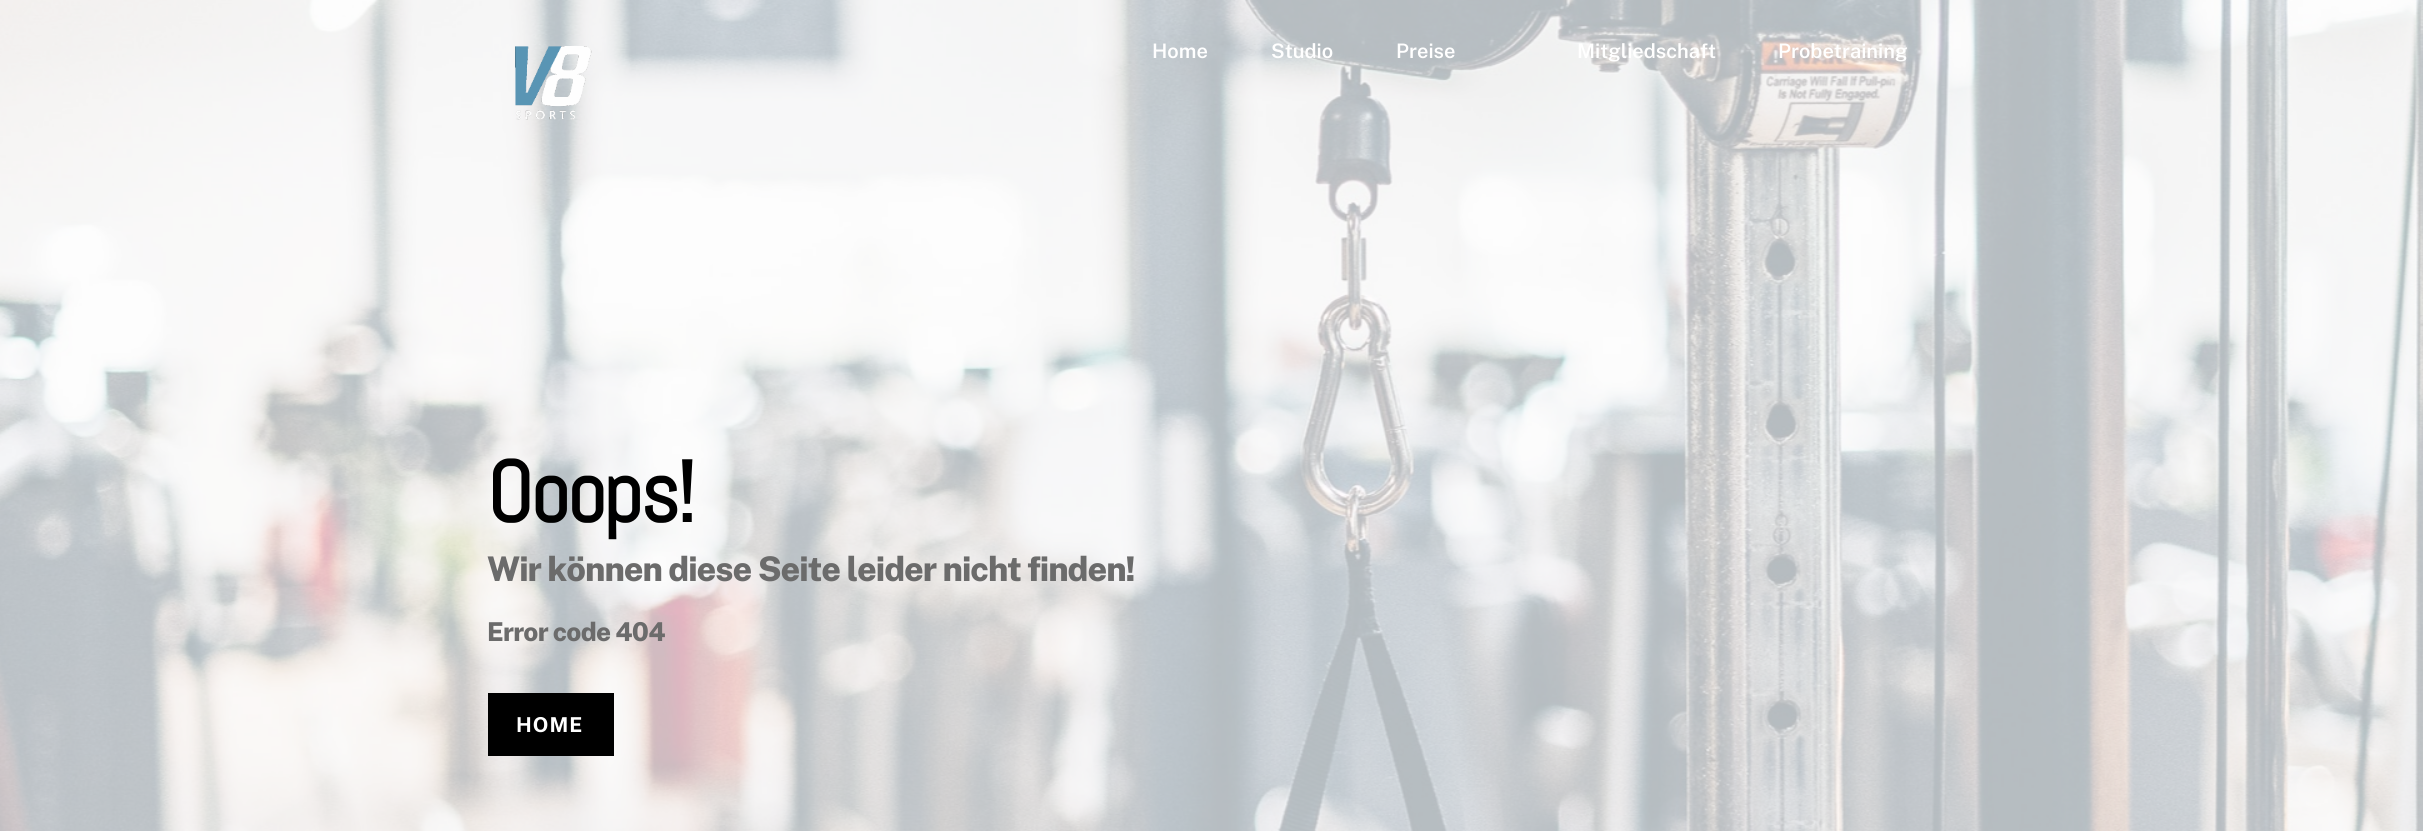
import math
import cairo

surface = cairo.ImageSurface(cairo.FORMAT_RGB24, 2423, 831)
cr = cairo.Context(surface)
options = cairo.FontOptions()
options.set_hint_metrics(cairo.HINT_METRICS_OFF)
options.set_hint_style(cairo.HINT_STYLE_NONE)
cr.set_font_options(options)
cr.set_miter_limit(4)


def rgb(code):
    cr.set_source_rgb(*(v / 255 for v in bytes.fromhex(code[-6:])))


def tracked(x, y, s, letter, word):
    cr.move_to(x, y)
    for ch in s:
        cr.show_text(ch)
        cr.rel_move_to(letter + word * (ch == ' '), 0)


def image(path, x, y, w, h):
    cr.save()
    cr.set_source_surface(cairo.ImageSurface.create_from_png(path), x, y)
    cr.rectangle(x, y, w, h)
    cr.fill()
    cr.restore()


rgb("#ffffff")
cr.paint()
image("img/2.png", 0, 0, 2423, 831)
image("img/1.png", 515, 46, 77, 74)
rgb("#000000")
cr.rectangle(488, 693, 126, 63)
cr.fill()
cr.select_font_face("Public Sans SemiBold")
cr.set_font_size(20)
rgb("#ffffff")
for x, y, s in [
    (1152, 58, "Home"),
    (1271, 58, "Studio"),
    (1396, 58, "Preise"),
    (1577, 58, "Mitgliedschaft"),
    (1778, 58, "Probetraining"),
]:
    cr.move_to(x, y)
    cr.show_text(s)
cr.select_font_face("Abel", cairo.FONT_SLANT_NORMAL, cairo.FONT_WEIGHT_BOLD)
cr.set_font_size(86)
rgb("#000000")
tracked(487, 522, "Ooops!", -2.5, 0)
cr.select_font_face("Public Sans ExtraBold")
cr.set_font_size(34)
rgb("#6b6b6b")
tracked(487, 581, "Wir können diese Seite leider nicht finden!", -1, 0)
cr.set_font_size(26)
tracked(487, 641, "Error code 404", -0.75, 0)
cr.select_font_face("Public Sans", cairo.FONT_SLANT_NORMAL, cairo.FONT_WEIGHT_BOLD)
cr.set_font_size(20.5)
rgb("#ffffff")
tracked(516, 732, "HOME", 1, 0)
surface.write_to_png("page.png")
